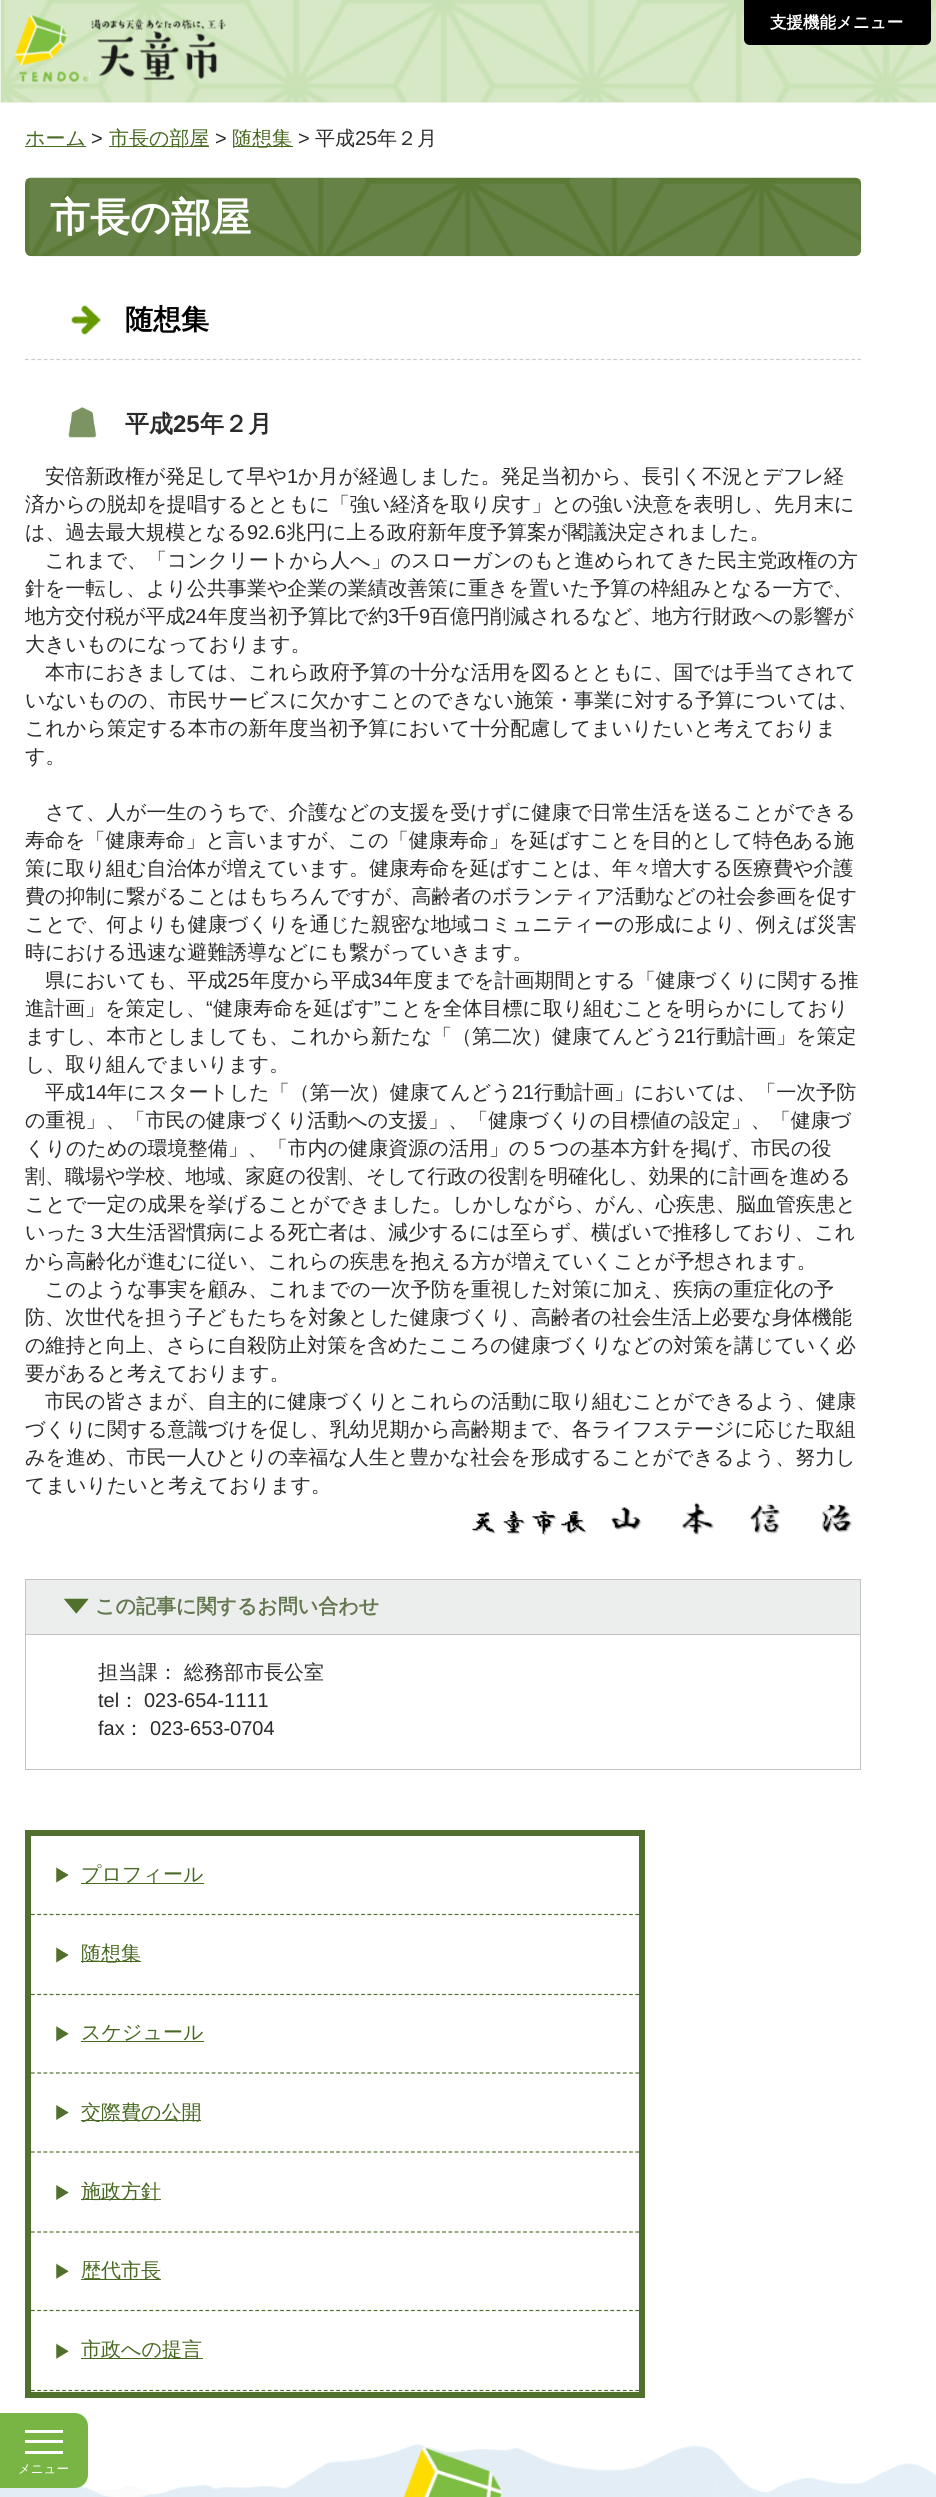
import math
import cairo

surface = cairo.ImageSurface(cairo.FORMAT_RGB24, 936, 2497)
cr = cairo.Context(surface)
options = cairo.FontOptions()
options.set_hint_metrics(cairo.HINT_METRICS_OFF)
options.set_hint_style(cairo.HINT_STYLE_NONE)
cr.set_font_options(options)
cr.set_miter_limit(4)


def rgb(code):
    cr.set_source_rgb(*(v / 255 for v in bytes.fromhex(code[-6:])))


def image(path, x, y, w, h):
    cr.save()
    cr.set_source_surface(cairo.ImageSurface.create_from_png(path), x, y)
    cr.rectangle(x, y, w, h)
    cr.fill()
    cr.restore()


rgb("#ffffff")
cr.paint()
image("img/1.png", 0, 0, 936, 103)
image("img/2.png", 15, 14, 211, 69)
rgb("#000000")
cr.new_path()
cr.move_to(744, 0)
cr.line_to(931, 0)
cr.line_to(931, 39)
cr.curve_to(931, 42.5, 928.5, 45, 925, 45)
cr.line_to(750, 45)
cr.curve_to(746.5, 45, 744, 42.5, 744, 39)
cr.close_path()
cr.fill()
image("img/12.png", 0, 2444, 936, 53)
rgb("#79b545")
cr.new_path()
cr.move_to(0, 2413)
cr.line_to(75, 2413)
cr.curve_to(82, 2413, 88, 2419, 88, 2426)
cr.line_to(88, 2475)
cr.curve_to(88, 2482, 82, 2488, 75, 2488)
cr.line_to(0, 2488)
cr.close_path()
cr.fill()
for x, y, w, h, color in [
    (25, 2430, 38, 3, "#ffffff"),
    (25, 2440, 38, 3, "#ffffff"),
    (25, 2451, 38, 3, "#ffffff"),
    (25, 146, 61, 1, "#486922"),
    (109, 146, 100, 1, "#486922"),
    (233, 146, 60, 1, "#486922"),
]:
    rgb(color)
    cr.rectangle(x, y, w, h)
    cr.fill()
image("img/3.png", 25, 177, 837, 80)
cr.new_path()
cr.move_to(25, 359.5)
cr.line_to(861, 359.5)
rgb("#cccccc")
cr.set_line_width(1.2)
cr.set_dash([3.75, 2.51])
cr.stroke()
image("img/4.png", 71, 305, 30, 30)
image("img/5.png", 68, 407, 29, 31)
image("img/6.png", 472, 1502, 381, 34)
cr.rectangle(25.5, 1579.5, 835, 190)
rgb("#c3c3c3")
cr.set_line_width(1)
cr.set_dash([])
cr.stroke()
rgb("#eceeed")
cr.rectangle(26, 1580, 834, 54)
cr.fill()
image("img/7.png", 63, 1598, 26, 16)
rgb("#c3c3c3")
cr.rectangle(26, 1634, 834, 1)
cr.fill()
cr.rectangle(28, 1833, 614, 562)
rgb("#51702d")
cr.set_line_width(6)
cr.stroke()
image("img/8.png", 56, 1867, 13, 16)
cr.new_path()
cr.move_to(31, 1914.5)
cr.line_to(639, 1914.5)
cr.set_line_width(1.2)
cr.set_dash([3.75, 2.48])
cr.stroke()
rgb("#486922")
cr.rectangle(81, 1883, 123, 1)
cr.fill()
image("img/8.png", 56, 1947, 13, 16)
cr.new_path()
cr.move_to(31, 1994.5)
cr.line_to(639, 1994.5)
rgb("#51702d")
cr.stroke()
rgb("#486922")
cr.rectangle(81, 1961, 60, 1)
cr.fill()
image("img/9.png", 56, 2026, 13, 16)
cr.new_path()
cr.move_to(31, 2073)
cr.line_to(639, 2073)
rgb("#51702d")
cr.stroke()
rgb("#486922")
cr.rectangle(81, 2041, 123, 1)
cr.fill()
image("img/10.png", 56, 2105, 13, 15)
cr.new_path()
cr.move_to(31, 2152)
cr.line_to(639, 2152)
rgb("#51702d")
cr.stroke()
rgb("#486922")
cr.rectangle(81, 2120, 120, 1)
cr.fill()
image("img/10.png", 56, 2185, 13, 15)
cr.new_path()
cr.move_to(31, 2232)
cr.line_to(639, 2232)
rgb("#51702d")
cr.stroke()
rgb("#486922")
cr.rectangle(81, 2199, 80, 1)
cr.fill()
image("img/11.png", 56, 2263, 13, 16)
cr.new_path()
cr.move_to(31, 2310.5)
cr.line_to(639, 2310.5)
rgb("#51702d")
cr.stroke()
rgb("#486922")
cr.rectangle(81, 2279, 80, 1)
cr.fill()
image("img/11.png", 56, 2343, 13, 16)
cr.new_path()
cr.move_to(31, 2390.5)
cr.line_to(639, 2390.5)
rgb("#51702d")
cr.stroke()
rgb("#486922")
cr.rectangle(81, 2358, 122, 1)
cr.fill()
image("img/13.png", 403, 2447, 99, 50)
cr.select_font_face("WenQuanYi Zen Hei", cairo.FONT_SLANT_NORMAL, cairo.FONT_WEIGHT_BOLD)
cr.set_font_size(16.5)
rgb("#ffffff")
cr.move_to(770, 28)
cr.show_text("支援機能メニュー")
cr.select_font_face("WenQuanYi Zen Hei Medium")
cr.set_font_size(12.5)
cr.move_to(18, 2473)
cr.show_text("メニュー")
cr.set_font_size(20)
rgb("#486922")
cr.move_to(25, 145)
cr.show_text("ホーム")
cr.select_font_face("Liberation Sans")
rgb("#2b2b2b")
cr.move_to(91, 145)
cr.show_text(">")
cr.select_font_face("WenQuanYi Zen Hei Medium")
rgb("#486922")
cr.move_to(109, 145)
cr.show_text("市長の部屋")
cr.select_font_face("Liberation Sans")
rgb("#2b2b2b")
cr.move_to(215, 145)
cr.show_text(">")
cr.select_font_face("WenQuanYi Zen Hei Medium")
rgb("#486922")
cr.move_to(232, 145)
cr.show_text("随想集")
cr.select_font_face("Liberation Sans")
rgb("#2b2b2b")
cr.move_to(298, 145)
cr.show_text(">")
cr.select_font_face("WenQuanYi Zen Hei Medium")
cr.move_to(315, 145)
cr.show_text("平成")
cr.select_font_face("Liberation Sans")
cr.move_to(355, 145)
cr.show_text("25")
cr.select_font_face("WenQuanYi Zen Hei Medium")
cr.move_to(377, 145)
cr.show_text("年２月")
cr.select_font_face("WenQuanYi Zen Hei", cairo.FONT_SLANT_NORMAL, cairo.FONT_WEIGHT_BOLD)
cr.set_font_size(40)
rgb("#ffffff")
cr.move_to(50, 231)
cr.show_text("市長の部屋")
cr.set_font_size(28)
rgb("#000000")
cr.move_to(125, 329)
cr.show_text("随想集")
cr.set_font_size(24)
rgb("#2b2b2b")
cr.move_to(125, 432)
cr.show_text("平成")
cr.select_font_face("Liberation Sans", cairo.FONT_SLANT_NORMAL, cairo.FONT_WEIGHT_BOLD)
cr.move_to(173, 432)
cr.show_text("25")
cr.select_font_face("WenQuanYi Zen Hei", cairo.FONT_SLANT_NORMAL, cairo.FONT_WEIGHT_BOLD)
cr.move_to(200, 432)
cr.show_text("年２月")
cr.select_font_face("WenQuanYi Zen Hei Medium")
cr.set_font_size(20)
cr.move_to(45, 483)
cr.show_text("安倍新政権が発足して早や")
cr.select_font_face("Liberation Sans")
cr.move_to(287, 483)
cr.show_text("1")
cr.select_font_face("WenQuanYi Zen Hei Medium")
for x, y, s in [
    (298, 483, "か月が経過しました。発足当初から、長引く不況とデフレ経"),
    (25, 511, "済からの脱却を提唱するとともに「強い経済を取り戻す」との強い決意を表明し、先月末に"),
    (25, 539, "は、過去最大規模となる"),
]:
    cr.move_to(x, y)
    cr.show_text(s)
cr.select_font_face("Liberation Sans")
cr.move_to(247, 539)
cr.show_text("92.6")
cr.select_font_face("WenQuanYi Zen Hei Medium")
for x, y, s in [
    (286, 539, "兆円に上る政府新年度予算案が閣議決定されました。"),
    (45, 567, "これまで、「コンクリートから人へ」のスローガンのもと進められてきた民主党政権の方"),
    (25, 595, "針を一転し、より公共事業や企業の業績改善策に重きを置いた予算の枠組みとなる一方で、"),
    (25, 623, "地方交付税が平成"),
]:
    cr.move_to(x, y)
    cr.show_text(s)
cr.select_font_face("Liberation Sans")
cr.move_to(185, 623)
cr.show_text("24")
cr.select_font_face("WenQuanYi Zen Hei Medium")
cr.move_to(208, 623)
cr.show_text("年度当初予算比で約")
cr.select_font_face("Liberation Sans")
cr.move_to(388, 623)
cr.show_text("3")
cr.select_font_face("WenQuanYi Zen Hei Medium")
cr.move_to(399, 623)
cr.show_text("千")
cr.select_font_face("Liberation Sans")
cr.move_to(419, 623)
cr.show_text("9")
cr.select_font_face("WenQuanYi Zen Hei Medium")
for x, y, s in [
    (430, 623, "百億円削減されるなど、地方行財政への影響が"),
    (25, 651, "大きいものになっております。"),
    (45, 679, "本市におきましては、これら政府予算の十分な活用を図るとともに、国では手当てされて"),
    (25, 707, "いないものの、市民サービスに欠かすことのできない施策・事業に対する予算については、"),
    (25, 735, "これから策定する本市の新年度当初予算において十分配慮してまいりたいと考えておりま"),
    (25, 763, "す。"),
    (45, 819, "さて、人が一生のうちで、介護などの支援を受けずに健康で日常生活を送ることができる"),
    (25, 847, "寿命を「健康寿命」と言いますが、この「健康寿命」を延ばすことを目的として特色ある施"),
    (25, 875, "策に取り組む自治体が増えています。健康寿命を延ばすことは、年々増大する医療費や介護"),
    (25, 903, "費の抑制に繋がることはもちろんですが、高齢者のボランティア活動などの社会参画を促す"),
    (25, 931, "ことで、何よりも健康づくりを通じた親密な地域コミュニティーの形成により、例えば災害"),
    (25, 959, "時における迅速な避難誘導などにも繋がっていきます。"),
    (45, 987, "県においても、平成"),
]:
    cr.move_to(x, y)
    cr.show_text(s)
cr.select_font_face("Liberation Sans")
cr.move_to(227, 987)
cr.show_text("25")
cr.select_font_face("WenQuanYi Zen Hei Medium")
cr.move_to(250, 987)
cr.show_text("年度から平成")
cr.select_font_face("Liberation Sans")
cr.move_to(371, 987)
cr.show_text("34")
cr.select_font_face("WenQuanYi Zen Hei Medium")
cr.move_to(393, 987)
cr.show_text("年度までを計画期間とする「健康づくりに関する推")
cr.move_to(25, 1015)
cr.show_text("進計画」を策定し、")
cr.select_font_face("Liberation Sans")
cr.move_to(206, 1015)
cr.show_text("“")
cr.select_font_face("WenQuanYi Zen Hei Medium")
cr.move_to(213, 1015)
cr.show_text("健康寿命を延ばす")
cr.select_font_face("Liberation Sans")
cr.move_to(374, 1015)
cr.show_text("”")
cr.select_font_face("WenQuanYi Zen Hei Medium")
cr.move_to(381, 1015)
cr.show_text("ことを全体目標に取り組むことを明らかにしており")
cr.move_to(25, 1043)
cr.show_text("ますし、本市としましても、これから新たな「（第二次）健康てんどう")
cr.select_font_face("Liberation Sans")
cr.move_to(674, 1043)
cr.show_text("21")
cr.select_font_face("WenQuanYi Zen Hei Medium")
for x, y, s in [
    (696, 1043, "行動計画」を策定"),
    (25, 1071, "し、取り組んでまいります。"),
    (45, 1099, "平成"),
]:
    cr.move_to(x, y)
    cr.show_text(s)
cr.select_font_face("Liberation Sans")
cr.move_to(85, 1099)
cr.show_text("14")
cr.select_font_face("WenQuanYi Zen Hei Medium")
cr.move_to(107, 1099)
cr.show_text("年にスタートした「（第一次）健康てんどう")
cr.select_font_face("Liberation Sans")
cr.move_to(512, 1099)
cr.show_text("21")
cr.select_font_face("WenQuanYi Zen Hei Medium")
for x, y, s in [
    (534, 1099, "行動計画」においては、「一次予防"),
    (25, 1127, "の重視」、「市民の健康づくり活動への支援」、「健康づくりの目標値の設定」、「健康づ"),
    (25, 1155, "くりのための環境整備」、「市内の健康資源の活用」の５つの基本方針を掲げ、市民の役"),
    (25, 1183, "割、職場や学校、地域、家庭の役割、そして行政の役割を明確化し、効果的に計画を進める"),
    (25, 1211, "ことで一定の成果を挙げることができました。しかしながら、がん、心疾患、脳血管疾患と"),
    (25, 1239, "いった３大生活習慣病による死亡者は、減少するには至らず、横ばいで推移しており、これ"),
    (25, 1268, "から高齢化が進むに従い、これらの疾患を抱える方が増えていくことが予想されます。"),
    (45, 1296, "このような事実を顧み、これまでの一次予防を重視した対策に加え、疾病の重症化の予"),
    (25, 1324, "防、次世代を担う子どもたちを対象とした健康づくり、高齢者の社会生活上必要な身体機能"),
    (25, 1352, "の維持と向上、さらに自殺防止対策を含めたこころの健康づくりなどの対策を講じていく必"),
    (25, 1380, "要があると考えております。"),
    (45, 1408, "市民の皆さまが、自主的に健康づくりとこれらの活動に取り組むことができるよう、健康"),
    (25, 1436, "づくりに関する意識づけを促し、乳幼児期から高齢期まで、各ライフステージに応じた取組"),
    (25, 1464, "みを進め、市民一人ひとりの幸福な人生と豊かな社会を形成することができるよう、努力し"),
    (25, 1492, "てまいりたいと考えております。"),
]:
    cr.move_to(x, y)
    cr.show_text(s)
cr.select_font_face("WenQuanYi Zen Hei", cairo.FONT_SLANT_NORMAL, cairo.FONT_WEIGHT_BOLD)
rgb("#64774f")
cr.move_to(95, 1613)
cr.show_text("この記事に関するお問い合わせ")
cr.select_font_face("WenQuanYi Zen Hei Medium")
rgb("#2b2b2b")
cr.move_to(98, 1679)
cr.show_text("担当課： 総務部市長公室")
cr.select_font_face("Liberation Sans")
cr.move_to(98, 1707)
cr.show_text("tel")
cr.select_font_face("WenQuanYi Zen Hei Medium")
cr.move_to(119, 1707)
cr.show_text("：")
cr.select_font_face("Liberation Sans")
cr.move_to(144, 1707)
cr.show_text("023-654-1111")
cr.move_to(98, 1735)
cr.show_text("fax")
cr.select_font_face("WenQuanYi Zen Hei Medium")
cr.move_to(124, 1735)
cr.show_text("：")
cr.select_font_face("Liberation Sans")
cr.move_to(150, 1735)
cr.show_text("023-653-0704")
cr.select_font_face("WenQuanYi Zen Hei Medium")
rgb("#486922")
for x, y, s in [
    (81, 1881, "プロフィール"),
    (81, 1960, "随想集"),
    (81, 2039, "スケジュール"),
    (81, 2119, "交際費の公開"),
    (81, 2198, "施政方針"),
    (81, 2277, "歴代市長"),
    (81, 2356, "市政への提言"),
]:
    cr.move_to(x, y)
    cr.show_text(s)
surface.write_to_png("page.png")
